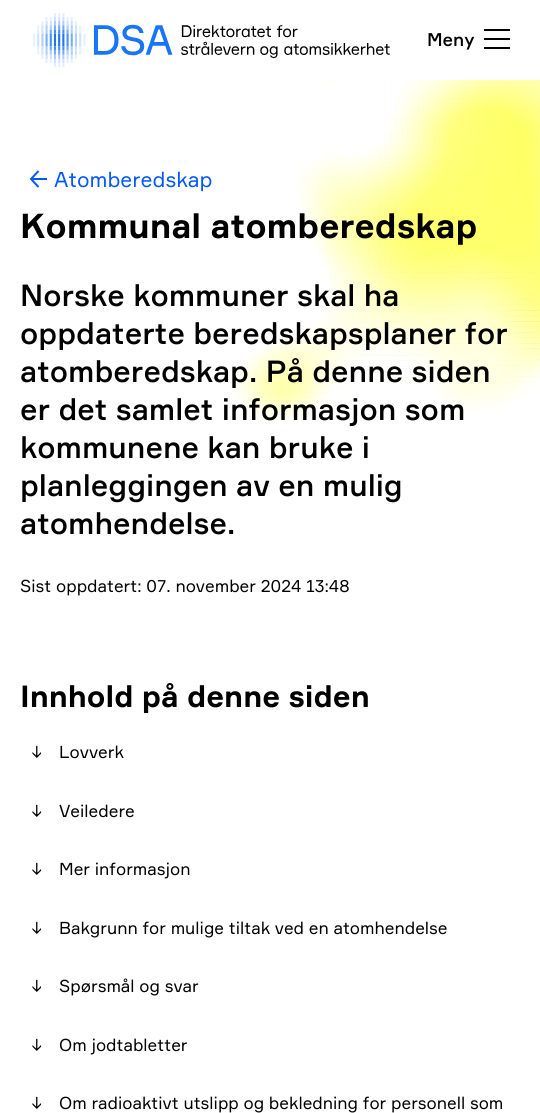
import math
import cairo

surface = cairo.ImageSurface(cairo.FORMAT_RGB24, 540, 1113)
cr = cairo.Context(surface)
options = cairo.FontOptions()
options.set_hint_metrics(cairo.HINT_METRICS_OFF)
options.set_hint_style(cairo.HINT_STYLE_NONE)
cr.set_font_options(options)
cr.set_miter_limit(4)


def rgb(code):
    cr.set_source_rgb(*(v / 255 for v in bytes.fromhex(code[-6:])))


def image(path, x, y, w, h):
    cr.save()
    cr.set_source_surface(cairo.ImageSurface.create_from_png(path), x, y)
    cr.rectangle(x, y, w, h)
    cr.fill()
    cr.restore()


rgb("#ffffff")
cr.paint()
image("img/1.png", 33, 13, 357, 55)
for x, y, w, h, color in [
    (484, 29, 26, 2, "#000000"),
    (484, 38, 26, 2, "#000000"),
    (484, 47, 26, 2, "#000000"),
]:
    rgb(color)
    cr.rectangle(x, y, w, h)
    cr.fill()
image("img/2.png", 231, 80, 309, 343)
rgb("#0058ff")
cr.rectangle(31, 178, 16, 2)
cr.fill()
cr.new_path()
cr.move_to(38.5, 187)
cr.line_to(31, 179)
cr.line_to(38.5, 171)
cr.stroke()
cr.select_font_face("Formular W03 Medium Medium")
cr.set_font_size(18)
rgb("#000000")
cr.move_to(427, 46)
cr.show_text("Meny")
cr.select_font_face("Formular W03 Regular")
cr.set_font_size(21)
rgb("#0058ff")
cr.move_to(54, 187)
cr.show_text("Atomberedskap")
cr.select_font_face("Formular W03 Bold", cairo.FONT_SLANT_NORMAL, cairo.FONT_WEIGHT_BOLD)
cr.set_font_size(34)
rgb("#000000")
cr.move_to(20, 238)
cr.show_text("Kommunal atomberedskap")
cr.select_font_face("Formular W03 Medium Medium")
cr.set_font_size(30)
for x, y, s in [
    (20, 306, "Norske kommuner skal ha"),
    (20, 344, "oppdaterte beredskapsplaner for"),
    (20, 382, "atomberedskap. På denne siden"),
    (20, 420, "er det samlet informasjon som"),
    (20, 458, "kommunene kan bruke i"),
    (20, 496, "planleggingen av en mulig"),
    (20, 534, "atomhendelse."),
]:
    cr.move_to(x, y)
    cr.show_text(s)
cr.select_font_face("Formular W03 Regular")
cr.set_font_size(17)
cr.move_to(20, 592)
cr.show_text("Sist oppdatert: 07. november 2024 13:48")
cr.select_font_face("Formular W03 Bold", cairo.FONT_SLANT_NORMAL, cairo.FONT_WEIGHT_BOLD)
cr.set_font_size(30)
cr.move_to(20, 707)
cr.show_text("Innhold på denne siden")
cr.select_font_face("Formular W03 Regular")
cr.set_font_size(17)
for x, y, s in [
    (31, 758, "↓"),
    (59, 758, "Lovverk"),
    (31, 817, "↓"),
    (59, 817, "Veiledere"),
    (31, 875, "↓"),
    (59, 875, "Mer informasjon"),
    (31, 934, "↓"),
    (59, 934, "Bakgrunn for mulige tiltak ved en atomhendelse"),
    (31, 992, "↓"),
    (59, 992, "Spørsmål og svar"),
    (31, 1051, "↓"),
    (59, 1051, "Om jodtabletter"),
    (31, 1109, "↓"),
    (59, 1109, "Om radioaktivt utslipp og bekledning for personell som"),
]:
    cr.move_to(x, y)
    cr.show_text(s)
surface.write_to_png("page.png")
